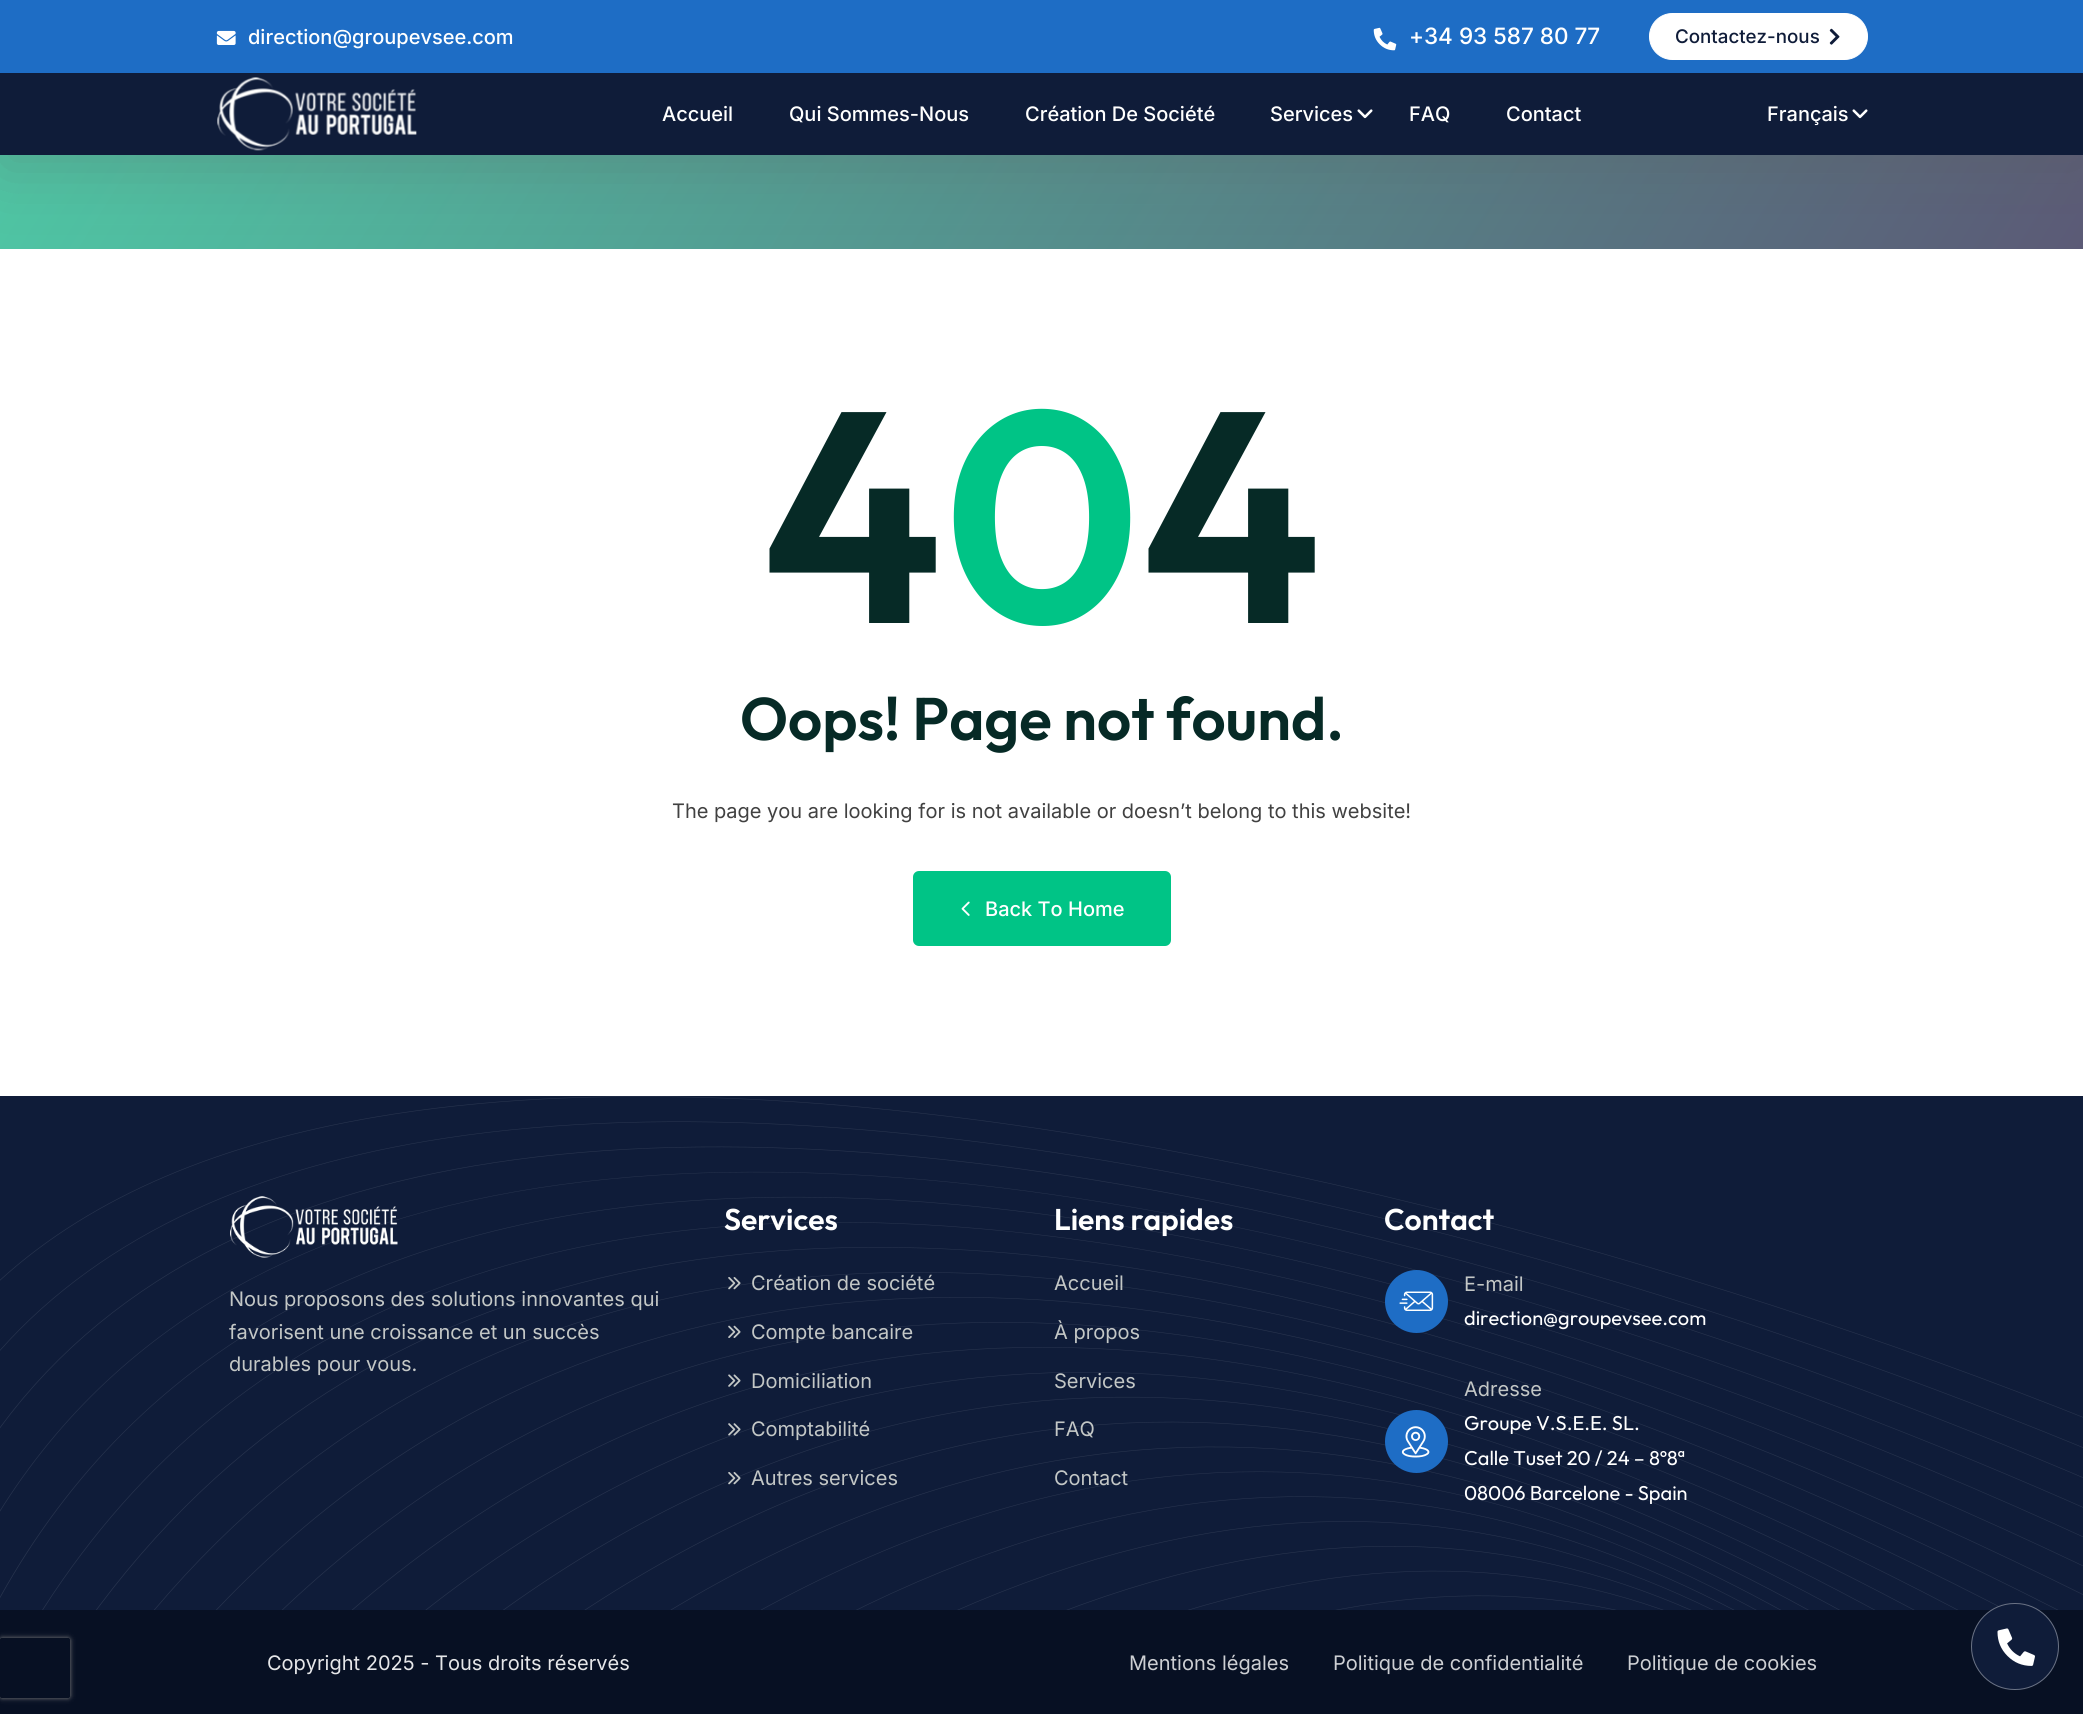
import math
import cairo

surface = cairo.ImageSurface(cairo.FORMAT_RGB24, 2083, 1714)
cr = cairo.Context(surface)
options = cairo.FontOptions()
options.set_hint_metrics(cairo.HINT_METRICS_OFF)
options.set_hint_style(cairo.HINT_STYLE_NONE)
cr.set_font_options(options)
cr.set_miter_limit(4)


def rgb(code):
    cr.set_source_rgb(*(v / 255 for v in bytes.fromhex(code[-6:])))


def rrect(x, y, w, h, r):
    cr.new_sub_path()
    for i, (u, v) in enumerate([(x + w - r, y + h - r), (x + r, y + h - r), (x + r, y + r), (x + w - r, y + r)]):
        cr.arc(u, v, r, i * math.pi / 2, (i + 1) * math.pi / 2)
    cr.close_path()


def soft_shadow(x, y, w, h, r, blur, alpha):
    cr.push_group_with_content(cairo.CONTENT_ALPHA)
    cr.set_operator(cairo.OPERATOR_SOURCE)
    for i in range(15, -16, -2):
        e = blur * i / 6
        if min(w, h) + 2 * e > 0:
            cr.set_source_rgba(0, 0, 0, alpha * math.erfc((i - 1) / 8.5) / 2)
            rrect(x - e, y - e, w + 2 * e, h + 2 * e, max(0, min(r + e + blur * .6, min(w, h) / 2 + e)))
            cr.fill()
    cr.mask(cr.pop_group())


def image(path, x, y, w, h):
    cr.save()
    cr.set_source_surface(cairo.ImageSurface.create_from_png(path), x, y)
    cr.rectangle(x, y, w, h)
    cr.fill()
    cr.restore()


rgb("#ffffff")
cr.paint()
rgb("#071023")
cr.rectangle(0, 1610, 2083, 104)
cr.fill()
cr.save()
cr.set_fill_rule(cairo.FILL_RULE_EVEN_ODD)
cr.new_path()
cr.move_to(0, 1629)
cr.line_to(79, 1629)
cr.line_to(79, 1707)
cr.line_to(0, 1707)
cr.close_path()
cr.move_to(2, 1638)
cr.line_to(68, 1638)
cr.curve_to(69, 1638, 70, 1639, 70, 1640)
cr.line_to(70, 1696)
cr.curve_to(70, 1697, 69, 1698, 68, 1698)
cr.line_to(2, 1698)
cr.curve_to(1, 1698, 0, 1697, 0, 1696)
cr.line_to(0, 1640)
cr.curve_to(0, 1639, 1, 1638, 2, 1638)
cr.close_path()
cr.clip()
rgb("#808080")
soft_shadow(0, 1638, 70, 60, 2, 2.5, 1)
cr.restore()
gradient = cairo.LinearGradient(1923, 507, 161, -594)
gradient.add_color_stop_rgba(0, 0.357, 0.353, 0.463, 1)
gradient.add_color_stop_rgba(1, 0.302, 0.839, 0.671, 1)
cr.set_source(gradient)
cr.rectangle(0, 155, 2083, 94)
cr.fill()
rgb("#5a5a5a")
soft_shadow(1, 13, 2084, 155, 0, 31, 0.3)
rgb("#1e6dc5")
cr.rectangle(0, 0, 2083, 73)
cr.fill()
image("img/1.png", 216, 30, 20, 15)
image("img/2.png", 1373, 27, 24, 24)
rgb("#ffffff")
rrect(1649.5, 13.5, 218, 46, 23)
cr.fill_preserve()
cr.set_line_width(1)
cr.stroke()
image("img/3.png", 1829, 28, 11, 17)
rgb("#0f1c39")
cr.rectangle(0, 73, 2083, 82)
cr.fill()
image("img/4.png", 217, 77, 200, 74)
image("img/5.png", 1357, 109, 16, 10)
image("img/5.png", 1852, 109, 16, 10)
cr.rectangle(0, 1096, 2083, 514)
cr.fill()
image("img/8.png", 0, 1096, 2083, 514)
rrect(1971, 1603, 88, 87, 43.5)
cr.fill()
rrect(1971.5, 1603.5, 87, 86, 43)
cr.set_source_rgba(1, 1, 1, 0.38)
cr.stroke()
image("img/6.png", 1997, 1628, 38, 38)
rgb("#00c486")
rrect(913, 871, 258, 75, 6)
cr.fill()
image("img/7.png", 961, 901, 9, 15)
image("img/9.png", 230, 1196, 168, 62)
image("img/10.png", 728, 1277, 13, 13)
image("img/11.png", 728, 1325, 13, 13)
image("img/12.png", 728, 1374, 13, 13)
image("img/13.png", 728, 1423, 13, 13)
image("img/14.png", 728, 1472, 13, 13)
rgb("#1e6dc5")
cr.arc(1416.5, 1301.5, 31.5, 0, 2 * math.pi)
cr.fill()
image("img/15.png", 1399, 1291, 35, 20)
cr.arc(1416.5, 1441.5, 31.5, 0, 2 * math.pi)
cr.fill()
image("img/16.png", 1401, 1426, 29, 32)
cr.select_font_face("Inter Medium")
cr.set_font_size(20)
rgb("#ffffff")
cr.move_to(248, 44)
cr.show_text("direction@groupevsee.com")
cr.set_font_size(22.5)
cr.move_to(1409, 44)
cr.show_text("+34 93 587 80 77")
cr.set_font_size(18.75)
rgb("#0f1c39")
cr.move_to(1675, 43)
cr.show_text("Contactez-nous")
cr.set_font_size(20)
rgb("#ffffff")
for x, y, s in [
    (662, 121, "Accueil"),
    (789, 121, "Qui Sommes-Nous"),
    (1025, 121, "Création De Société"),
    (1270, 121, "Services"),
    (1409, 121, "FAQ"),
    (1506, 121, "Contact"),
    (1767, 121, "Français"),
]:
    cr.move_to(x, y)
    cr.show_text(s)
cr.select_font_face("Outfit SemiBold")
cr.set_font_size(300)
rgb("#062a26")
cr.move_to(762, 623)
cr.show_text("4")
rgb("#00c486")
cr.move_to(943, 623)
cr.show_text("0")
rgb("#062a26")
cr.move_to(1141, 623)
cr.show_text("4")
cr.set_font_size(60)
cr.move_to(740, 740)
cr.show_text("Oops! Page not found.")
cr.select_font_face("Inter")
cr.set_font_size(20)
rgb("#414141")
cr.move_to(672, 818)
cr.show_text("The page you are looking for is not available or doesn’t belong to this website!")
cr.select_font_face("Inter Medium")
rgb("#ffffff")
cr.move_to(985, 916)
cr.show_text("Back To Home")
cr.select_font_face("Inter")
rgb("#c3c7c6")
for x, y, s in [
    (229, 1306, "Nous proposons des solutions innovantes qui"),
    (229, 1339, "favorisent une croissance et un succès"),
    (229, 1371, "durables pour vous."),
]:
    cr.move_to(x, y)
    cr.show_text(s)
cr.select_font_face("Outfit SemiBold")
cr.set_font_size(30)
rgb("#ffffff")
cr.move_to(724, 1230)
cr.show_text("Services")
cr.select_font_face("Inter")
cr.set_font_size(20)
rgb("#c3c7c6")
for x, y, s in [
    (751, 1290, "Création de société"),
    (751, 1339, "Compte bancaire"),
    (751, 1388, "Domiciliation"),
    (751, 1436, "Comptabilité"),
    (751, 1485, "Autres services"),
]:
    cr.move_to(x, y)
    cr.show_text(s)
cr.select_font_face("Outfit SemiBold")
cr.set_font_size(30)
rgb("#ffffff")
cr.move_to(1054, 1230)
cr.show_text("Liens rapides")
cr.select_font_face("Inter")
cr.set_font_size(20)
rgb("#c3c7c6")
for x, y, s in [
    (1054, 1290, "Accueil"),
    (1054, 1339, "À propos"),
    (1054, 1388, "Services"),
    (1054, 1436, "FAQ"),
    (1054, 1485, "Contact"),
]:
    cr.move_to(x, y)
    cr.show_text(s)
cr.select_font_face("Outfit SemiBold")
cr.set_font_size(30)
rgb("#ffffff")
cr.move_to(1384, 1230)
cr.show_text("Contact")
cr.select_font_face("Inter")
cr.set_font_size(20)
rgb("#c3c7c6")
cr.move_to(1464, 1291)
cr.show_text("E-mail")
cr.select_font_face("Outfit")
rgb("#ffffff")
cr.move_to(1464, 1325)
cr.show_text("direction@groupevsee.com")
cr.select_font_face("Inter")
rgb("#c3c7c6")
cr.move_to(1464, 1396)
cr.show_text("Adresse")
cr.select_font_face("Outfit")
rgb("#ffffff")
for x, y, s in [
    (1464, 1430, "Groupe V.S.E.E. SL."),
    (1464, 1465, "Calle Tuset 20 / 24 – 8º8ª"),
    (1464, 1500, "08006 Barcelone - Spain"),
]:
    cr.move_to(x, y)
    cr.show_text(s)
cr.select_font_face("Inter")
rgb("#e6e7e9")
cr.move_to(267, 1670)
cr.show_text("Copyright 2025 - Tous droits réservés")
rgb("#cdcfd3")
for x, y, s in [
    (1129, 1670, "Mentions légales"),
    (1333, 1670, "Politique de confidentialité"),
    (1627, 1670, "Politique de cookies"),
]:
    cr.move_to(x, y)
    cr.show_text(s)
surface.write_to_png("page.png")
